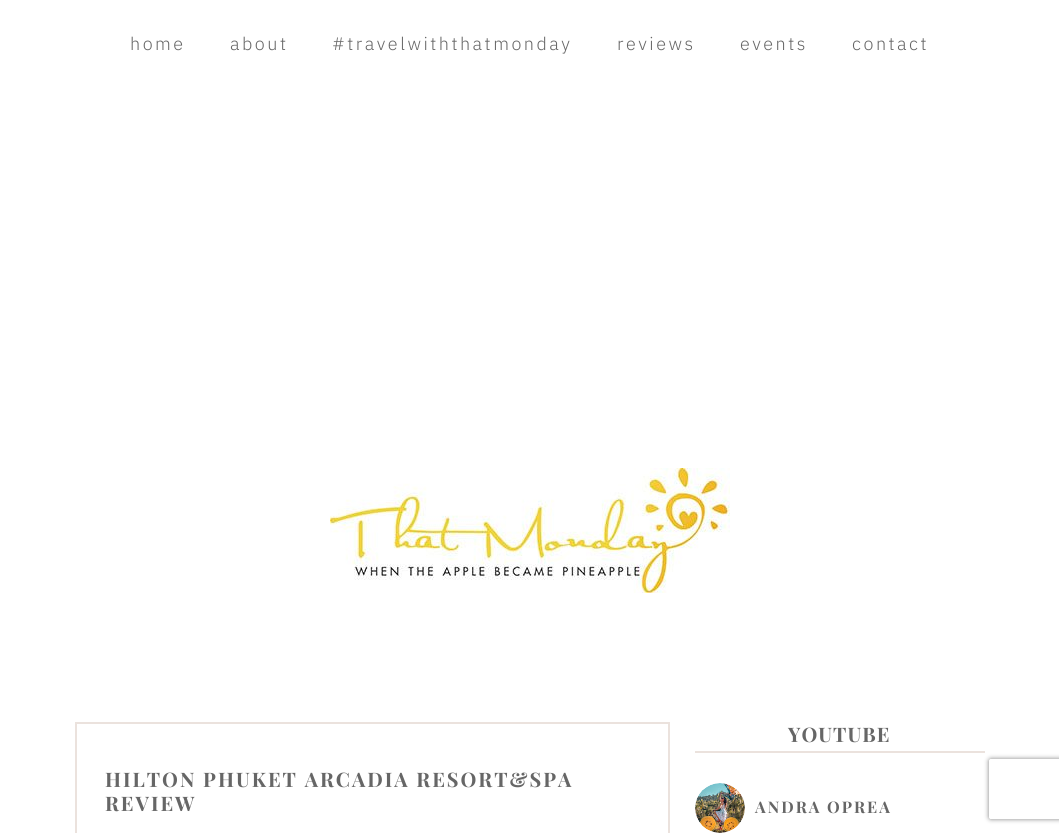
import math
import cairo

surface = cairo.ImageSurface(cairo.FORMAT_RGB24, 1059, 833)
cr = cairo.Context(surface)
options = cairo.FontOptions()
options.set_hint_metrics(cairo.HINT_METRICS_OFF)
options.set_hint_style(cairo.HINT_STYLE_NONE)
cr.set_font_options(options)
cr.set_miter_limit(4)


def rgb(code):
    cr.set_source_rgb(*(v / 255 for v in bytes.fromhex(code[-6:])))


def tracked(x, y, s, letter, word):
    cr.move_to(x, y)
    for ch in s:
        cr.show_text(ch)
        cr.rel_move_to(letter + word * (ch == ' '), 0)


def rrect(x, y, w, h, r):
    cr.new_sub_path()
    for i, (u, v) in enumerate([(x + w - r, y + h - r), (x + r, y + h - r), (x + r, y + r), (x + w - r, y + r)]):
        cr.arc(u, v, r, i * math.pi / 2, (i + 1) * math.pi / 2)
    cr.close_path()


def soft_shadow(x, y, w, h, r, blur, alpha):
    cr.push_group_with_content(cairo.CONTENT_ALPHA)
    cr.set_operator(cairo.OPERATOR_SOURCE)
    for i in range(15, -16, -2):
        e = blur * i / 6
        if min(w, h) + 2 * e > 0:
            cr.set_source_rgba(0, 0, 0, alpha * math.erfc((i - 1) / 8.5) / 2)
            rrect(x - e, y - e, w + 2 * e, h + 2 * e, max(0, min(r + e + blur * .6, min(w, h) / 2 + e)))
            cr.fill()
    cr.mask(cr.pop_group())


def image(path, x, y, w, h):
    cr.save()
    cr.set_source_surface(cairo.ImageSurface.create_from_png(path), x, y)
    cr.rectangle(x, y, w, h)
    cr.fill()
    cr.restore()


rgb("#ffffff")
cr.paint()
image("img/1.png", 330, 468, 400, 125)
cr.rectangle(76, 723, 593, 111)
rgb("#ebe2dd")
cr.stroke()
cr.rectangle(695, 751, 290, 2)
cr.fill()
image("img/2.png", 695, 783, 50, 50)
cr.save()
cr.set_fill_rule(cairo.FILL_RULE_EVEN_ODD)
cr.new_path()
cr.move_to(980, 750)
cr.line_to(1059, 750)
cr.line_to(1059, 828)
cr.line_to(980, 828)
cr.close_path()
cr.move_to(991, 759)
cr.line_to(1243, 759)
cr.curve_to(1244, 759, 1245, 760, 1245, 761)
cr.line_to(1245, 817)
cr.curve_to(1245, 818, 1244, 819, 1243, 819)
cr.line_to(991, 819)
cr.curve_to(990, 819, 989, 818, 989, 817)
cr.line_to(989, 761)
cr.curve_to(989, 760, 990, 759, 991, 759)
cr.close_path()
cr.clip()
rgb("#808080")
soft_shadow(989, 759, 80, 60, 2, 2.5, 1)
cr.restore()
cr.select_font_face("IBM Plex Sans Light")
cr.set_font_size(18)
rgb("#666666")
for x, y, s in [
    (130, 50, "home"),
    (230, 50, "about"),
    (332, 50, "#travelwiththatmonday"),
    (617, 50, "reviews"),
    (740, 50, "events"),
    (852, 50, "contact"),
]:
    tracked(x, y, s, 2.5, 0)
cr.select_font_face("Playfair Display", cairo.FONT_SLANT_NORMAL, cairo.FONT_WEIGHT_BOLD)
cr.set_font_size(20)
tracked(105, 787, "HILTON PHUKET ARCADIA RESORT&SPA", 2, 0)
tracked(105, 811, "REVIEW", 2, 0)
tracked(788, 742, "YOUTUBE", 1, 0)
cr.set_font_size(16)
tracked(755, 813, "ANDRA OPREA", 2, 0)
surface.write_to_png("page.png")
